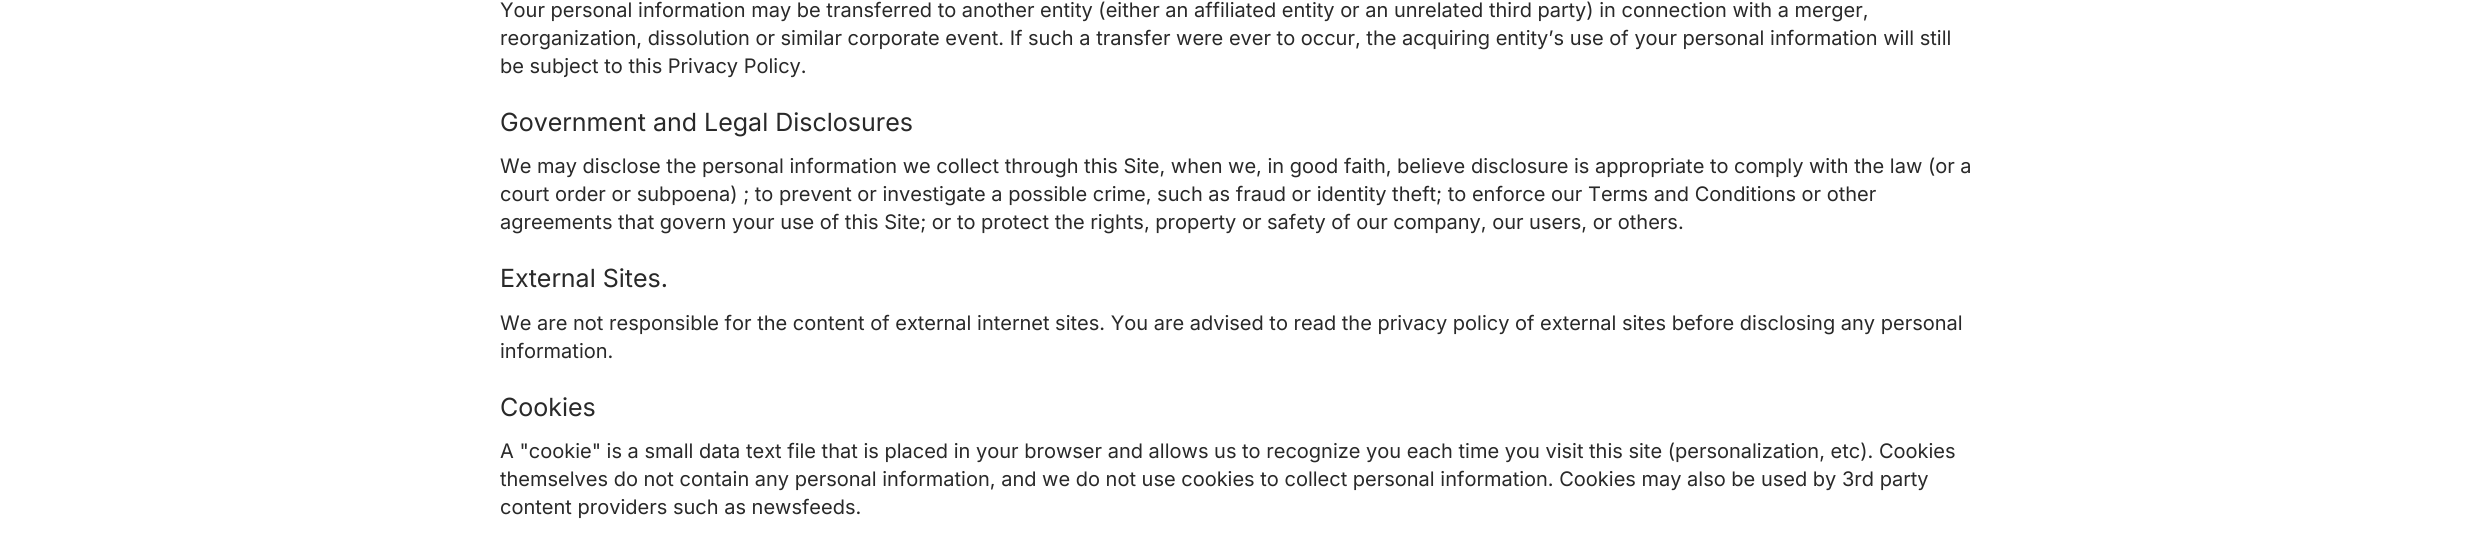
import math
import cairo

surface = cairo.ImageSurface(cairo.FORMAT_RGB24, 2479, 560)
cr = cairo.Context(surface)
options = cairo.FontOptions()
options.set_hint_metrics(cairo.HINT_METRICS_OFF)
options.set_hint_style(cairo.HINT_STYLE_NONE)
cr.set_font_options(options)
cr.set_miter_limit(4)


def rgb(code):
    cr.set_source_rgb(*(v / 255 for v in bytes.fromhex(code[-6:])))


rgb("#ffffff")
cr.paint()
cr.select_font_face("Inter")
cr.set_font_size(20)
rgb("#292929")
for x, y, s in [
    (500, 17, "Your personal information may be transferred to another entity (either an affiliated entity or an unrelated third party) in connection with a merger,"),
    (500, 45, "reorganization, dissolution or similar corporate event. If such a transfer were ever to occur, the acquiring entity’s use of your personal information will still"),
    (500, 73, "be subject to this Privacy Policy."),
]:
    cr.move_to(x, y)
    cr.show_text(s)
cr.set_font_size(25)
cr.move_to(500, 131)
cr.show_text("Government and Legal Disclosures")
cr.set_font_size(20)
for x, y, s in [
    (500, 173, "We may disclose the personal information we collect through this Site, when we, in good faith, believe disclosure is appropriate to comply with the law (or a"),
    (500, 201, "court order or subpoena) ; to prevent or investigate a possible crime, such as fraud or identity theft; to enforce our Terms and Conditions or other"),
    (500, 229, "agreements that govern your use of this Site; or to protect the rights, property or safety of our company, our users, or others."),
]:
    cr.move_to(x, y)
    cr.show_text(s)
cr.set_font_size(25)
cr.move_to(500, 287)
cr.show_text("External Sites.")
cr.set_font_size(20)
cr.move_to(500, 330)
cr.show_text("We are not responsible for the content of external internet sites. You are advised to read the privacy policy of external sites before disclosing any personal")
cr.move_to(500, 358)
cr.show_text("information.")
cr.set_font_size(25)
cr.move_to(500, 416)
cr.show_text("Cookies")
cr.set_font_size(20)
for x, y, s in [
    (500, 458, "A \"cookie\" is a small data text file that is placed in your browser and allows us to recognize you each time you visit this site (personalization, etc). Cookies"),
    (500, 486, "themselves do not contain any personal information, and we do not use cookies to collect personal information. Cookies may also be used by 3rd party"),
    (500, 514, "content providers such as newsfeeds."),
]:
    cr.move_to(x, y)
    cr.show_text(s)
surface.write_to_png("page.png")
